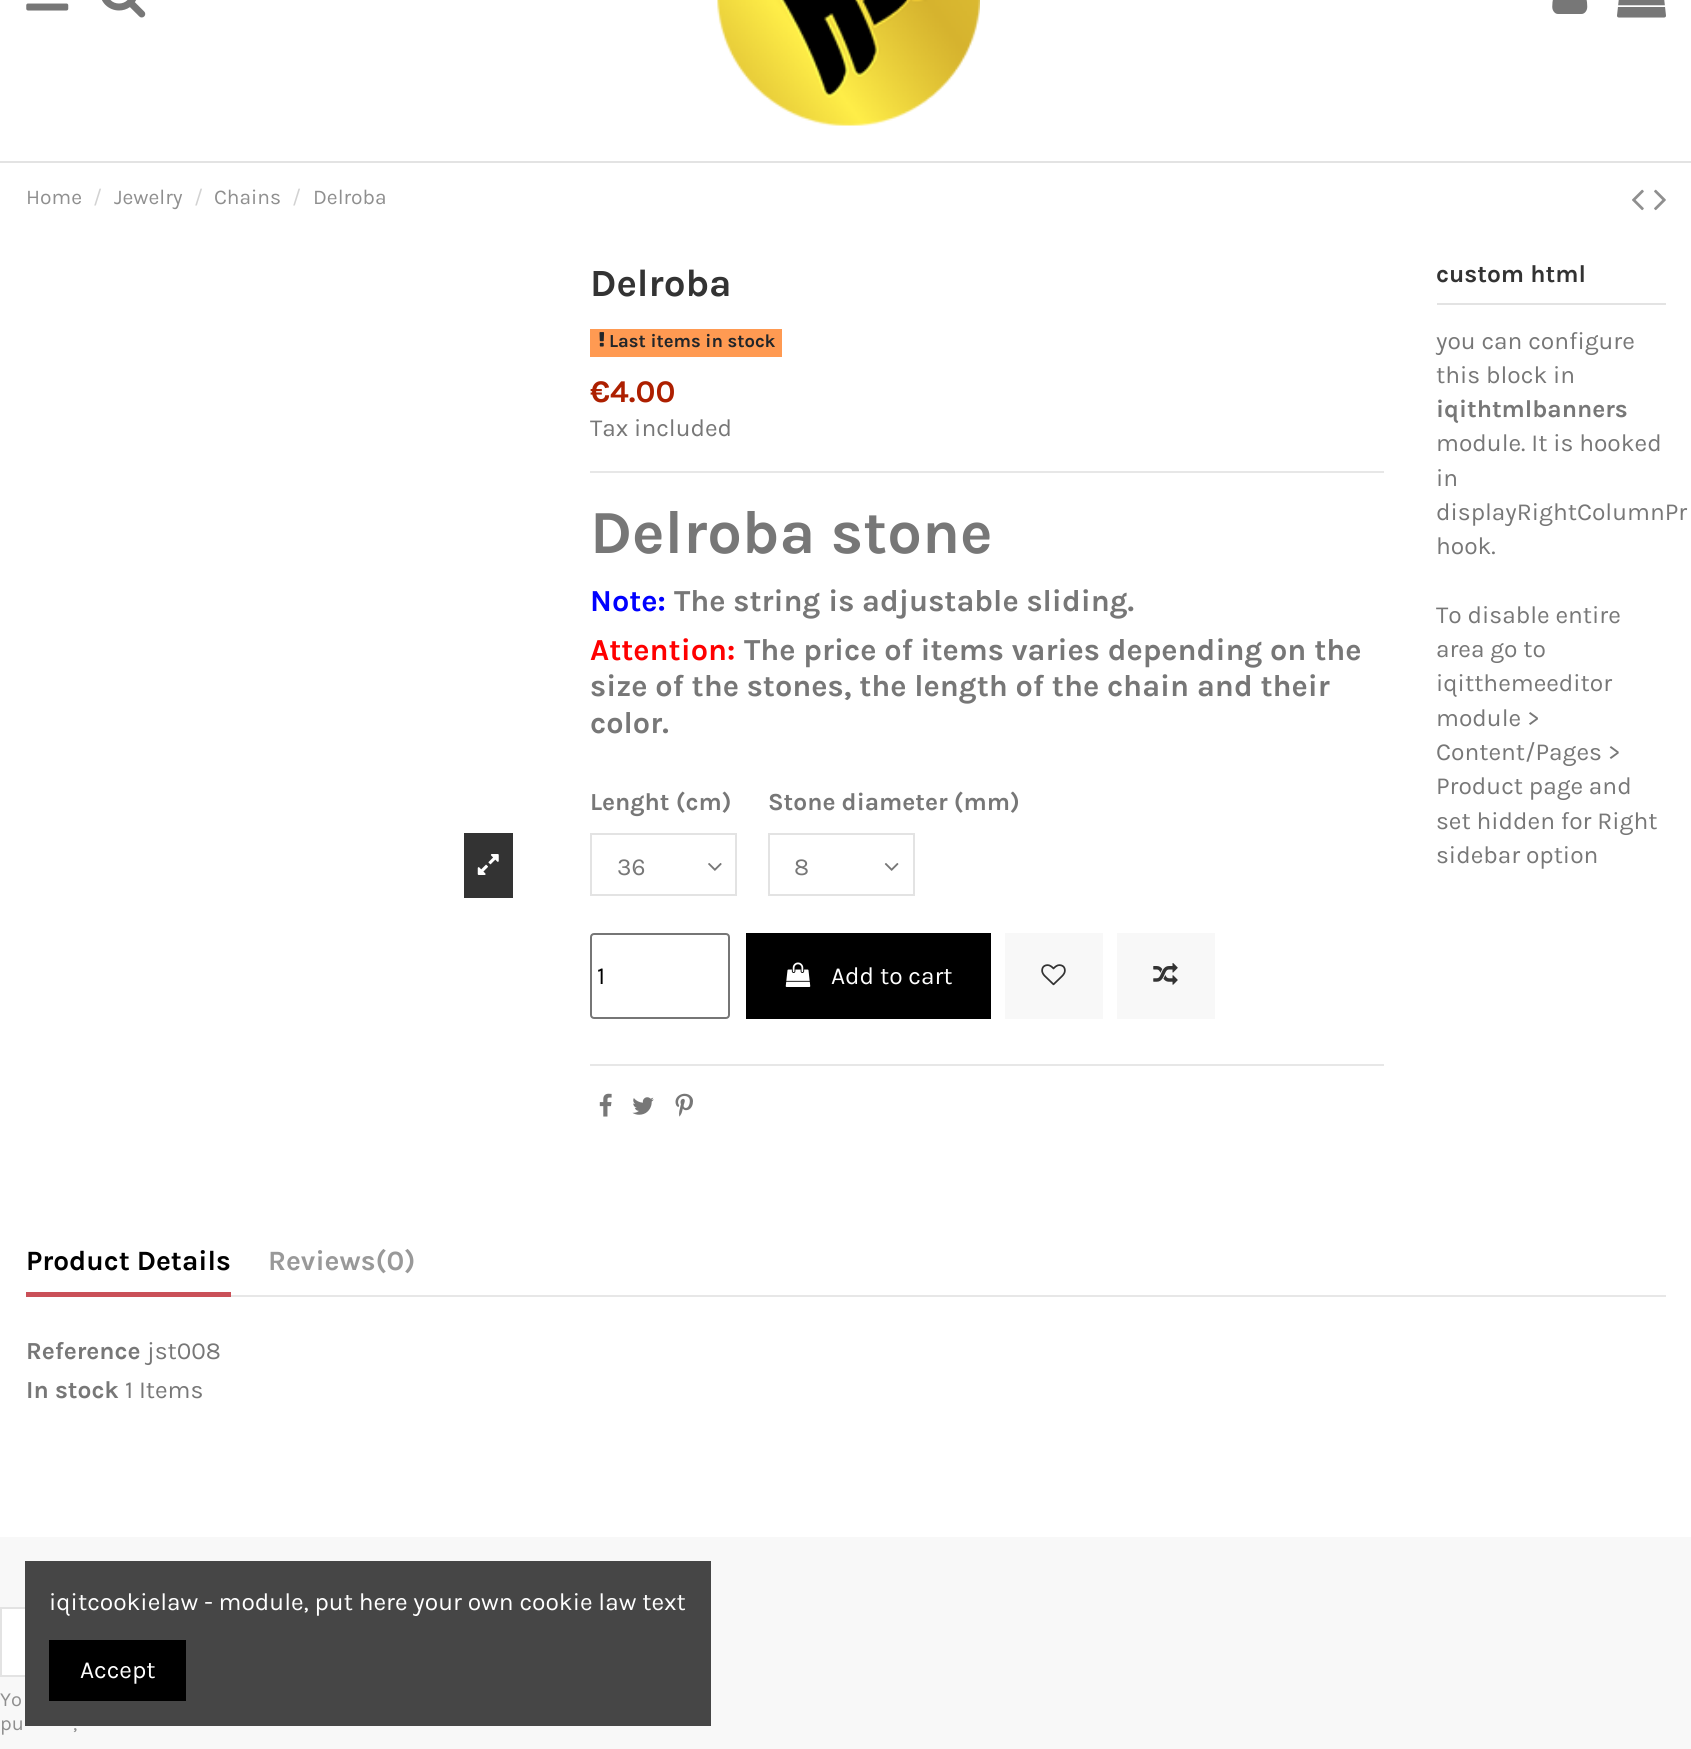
import math
import cairo

surface = cairo.ImageSurface(cairo.FORMAT_RGB24, 1691, 1749)
cr = cairo.Context(surface)
options = cairo.FontOptions()
options.set_hint_metrics(cairo.HINT_METRICS_OFF)
options.set_hint_style(cairo.HINT_STYLE_NONE)
cr.set_font_options(options)
cr.set_miter_limit(4)


def rgb(code):
    cr.set_source_rgb(*(v / 255 for v in bytes.fromhex(code[-6:])))


def rrect(x, y, w, h, r):
    cr.new_sub_path()
    for i, (u, v) in enumerate([(x + w - r, y + h - r), (x + r, y + h - r), (x + r, y + r), (x + w - r, y + r)]):
        cr.arc(u, v, r, i * math.pi / 2, (i + 1) * math.pi / 2)
    cr.close_path()


def image(path, x, y, w, h):
    cr.save()
    cr.set_source_surface(cairo.ImageSurface.create_from_png(path), x, y)
    cr.rectangle(x, y, w, h)
    cr.fill()
    cr.restore()


rgb("#ffffff")
cr.paint()
rgb("#e3e3e3")
cr.rectangle(0, 161, 1691, 2)
cr.fill()
image("img/1.png", 26, 3, 43, 8)
image("img/2.png", 102, 0, 44, 18)
image("img/3.png", 717, 0, 263, 126)
image("img/4.png", 1552, 0, 36, 14)
image("img/5.png", 1617, 0, 49, 18)
image("img/6.png", 1632, 189, 12, 22)
image("img/7.png", 1654, 189, 12, 22)
rgb("#333333")
cr.rectangle(464, 833, 49, 65)
cr.fill()
image("img/8.png", 477, 854, 22, 21)
rgb("#e7e7e7")
cr.rectangle(590, 471, 794, 2)
cr.fill()
rgb("#ff9a52")
cr.rectangle(590, 329, 192, 28)
cr.fill()
image("img/9.png", 599, 332, 6, 15)
image("img/10.png", 708, 863, 14, 8)
cr.rectangle(591, 834, 145, 61)
rgb("#e3e3e3")
cr.stroke()
image("img/11.png", 884, 863, 15, 8)
cr.rectangle(769, 834, 145, 61)
cr.stroke()
rrect(591, 934, 138, 84, 3)
rgb("#767676")
cr.stroke()
rgb("#000000")
cr.rectangle(746, 933, 245, 86)
cr.fill()
image("img/12.png", 785, 962, 26, 25)
rgb("#f8f8f8")
cr.rectangle(1005, 933, 98, 86)
cr.fill()
image("img/13.png", 1041, 964, 25, 22)
cr.rectangle(1117, 933, 98, 86)
cr.fill()
image("img/14.png", 1153, 963, 25, 22)
rgb("#e7e7e7")
cr.rectangle(590, 1064, 794, 2)
cr.fill()
image("img/15.png", 599, 1093, 13, 24)
image("img/16.png", 632, 1097, 22, 18)
image("img/17.png", 675, 1093, 18, 24)
for x, y, w, h, color in [
    (1437, 303, 229, 2, "#e3e3e3"),
    (231, 1295, 1435, 2, "#e7e7e7"),
    (26, 1292, 205, 5, "#ca5058"),
    (0, 1537, 1691, 212, "#f8f8f8"),
    (2, 1609, 23, 66, "#ffffff"),
]:
    rgb(color)
    cr.rectangle(x, y, w, h)
    cr.fill()
cr.rectangle(1, 1608, 418, 68)
rgb("#e3e3e3")
cr.stroke()
rgb("#464646")
cr.rectangle(25, 1561, 686, 165)
cr.fill()
rgb("#000000")
cr.rectangle(49, 1640, 137, 61)
cr.fill()
cr.select_font_face("Karla")
cr.set_font_size(21)
rgb("#8f8f8f")
cr.move_to(26, 204)
cr.show_text("Home")
rgb("#d2d2d2")
cr.move_to(93, 204)
cr.show_text("/")
rgb("#8f8f8f")
cr.move_to(114, 204)
cr.show_text("Jewelry")
rgb("#d2d2d2")
cr.move_to(194, 204)
cr.show_text("/")
rgb("#8f8f8f")
cr.move_to(214, 204)
cr.show_text("Chains")
rgb("#d2d2d2")
cr.move_to(292, 204)
cr.show_text("/")
rgb("#8f8f8f")
cr.move_to(313, 204)
cr.show_text("Delroba")
cr.select_font_face("Karla", cairo.FONT_SLANT_NORMAL, cairo.FONT_WEIGHT_BOLD)
cr.set_font_size(38.5)
rgb("#333333")
cr.move_to(590, 296)
cr.show_text("Delroba")
cr.set_font_size(18.4)
rgb("#212529")
cr.move_to(609, 347)
cr.show_text("Last items in stock")
cr.set_font_size(31.5)
rgb("#ad1f00")
cr.move_to(590, 402)
cr.show_text("€4.00")
cr.select_font_face("Karla")
cr.set_font_size(24.5)
rgb("#777777")
cr.move_to(590, 436)
cr.show_text("Tax included")
cr.select_font_face("Karla", cairo.FONT_SLANT_NORMAL, cairo.FONT_WEIGHT_BOLD)
cr.set_font_size(61.25)
cr.move_to(590, 553)
cr.show_text("Delroba stone")
cr.set_font_size(30.6)
rgb("#0000ff")
cr.move_to(590, 611)
cr.show_text("Note:")
rgb("#777777")
cr.move_to(674, 611)
cr.show_text("The string is adjustable sliding.")
rgb("#ff0000")
cr.move_to(590, 660)
cr.show_text("Attention:")
rgb("#777777")
for x, y, s in [
    (744, 660, "The price of items varies depending on the"),
    (590, 696, "size of the stones, the length of the chain and their"),
    (590, 733, "color."),
]:
    cr.move_to(x, y)
    cr.show_text(s)
cr.set_font_size(24.5)
cr.move_to(590, 810)
cr.show_text("Lenght (cm)")
cr.select_font_face("Karla")
cr.move_to(617, 875)
cr.show_text("36")
cr.select_font_face("Karla", cairo.FONT_SLANT_NORMAL, cairo.FONT_WEIGHT_BOLD)
cr.move_to(768, 810)
cr.show_text("Stone diameter (mm)")
cr.select_font_face("Karla")
cr.move_to(794, 875)
cr.show_text("8")
rgb("#000000")
cr.move_to(597, 984)
cr.show_text("1")
rgb("#ffffff")
cr.move_to(831, 984)
cr.show_text("Add to cart")
cr.select_font_face("Karla", cairo.FONT_SLANT_NORMAL, cairo.FONT_WEIGHT_BOLD)
rgb("#333333")
cr.move_to(1436, 282)
cr.show_text("custom html")
cr.select_font_face("Karla")
rgb("#777777")
cr.move_to(1436, 349)
cr.show_text("you can configure")
cr.move_to(1436, 383)
cr.show_text("this block in")
cr.select_font_face("Karla", cairo.FONT_SLANT_NORMAL, cairo.FONT_WEIGHT_BOLD)
cr.move_to(1436, 417)
cr.show_text("iqithtmlbanners")
cr.select_font_face("Karla")
for x, y, s in [
    (1436, 451, "module. It is hooked"),
    (1436, 486, "in"),
    (1436, 520, "displayRightColumnPr"),
    (1436, 554, "hook."),
    (1436, 623, "To disable entire"),
    (1436, 657, "area go to"),
    (1436, 691, "iqitthemeeditor"),
    (1436, 726, "module >"),
    (1436, 760, "Content/Pages >"),
    (1436, 794, "Product page and"),
    (1436, 829, "set hidden for Right"),
    (1436, 863, "sidebar option"),
]:
    cr.move_to(x, y)
    cr.show_text(s)
cr.select_font_face("Karla", cairo.FONT_SLANT_NORMAL, cairo.FONT_WEIGHT_BOLD)
cr.set_font_size(28)
rgb("#000000")
cr.move_to(26, 1270)
cr.show_text("Product Details")
rgb("#999999")
cr.move_to(268, 1270)
cr.show_text("Reviews(0)")
cr.set_font_size(24.5)
rgb("#777777")
cr.move_to(26, 1359)
cr.show_text("Reference")
cr.select_font_face("Karla")
cr.move_to(147, 1359)
cr.show_text("jst008")
cr.select_font_face("Karla", cairo.FONT_SLANT_NORMAL, cairo.FONT_WEIGHT_BOLD)
cr.move_to(26, 1398)
cr.show_text("In stock")
cr.select_font_face("Karla")
cr.move_to(125, 1398)
cr.show_text("1 Items")
cr.set_font_size(20)
rgb("#8f8f8f")
for x, y, s in [
    (0, 1706, "Yo"),
    (0, 1730, "pu"),
    (73, 1730, ","),
]:
    cr.move_to(x, y)
    cr.show_text(s)
cr.set_font_size(24.5)
rgb("#ffffff")
cr.move_to(49, 1610)
cr.show_text("iqitcookielaw - module, put here your own cookie law text")
cr.move_to(80, 1678)
cr.show_text("Accept")
surface.write_to_png("page.png")
